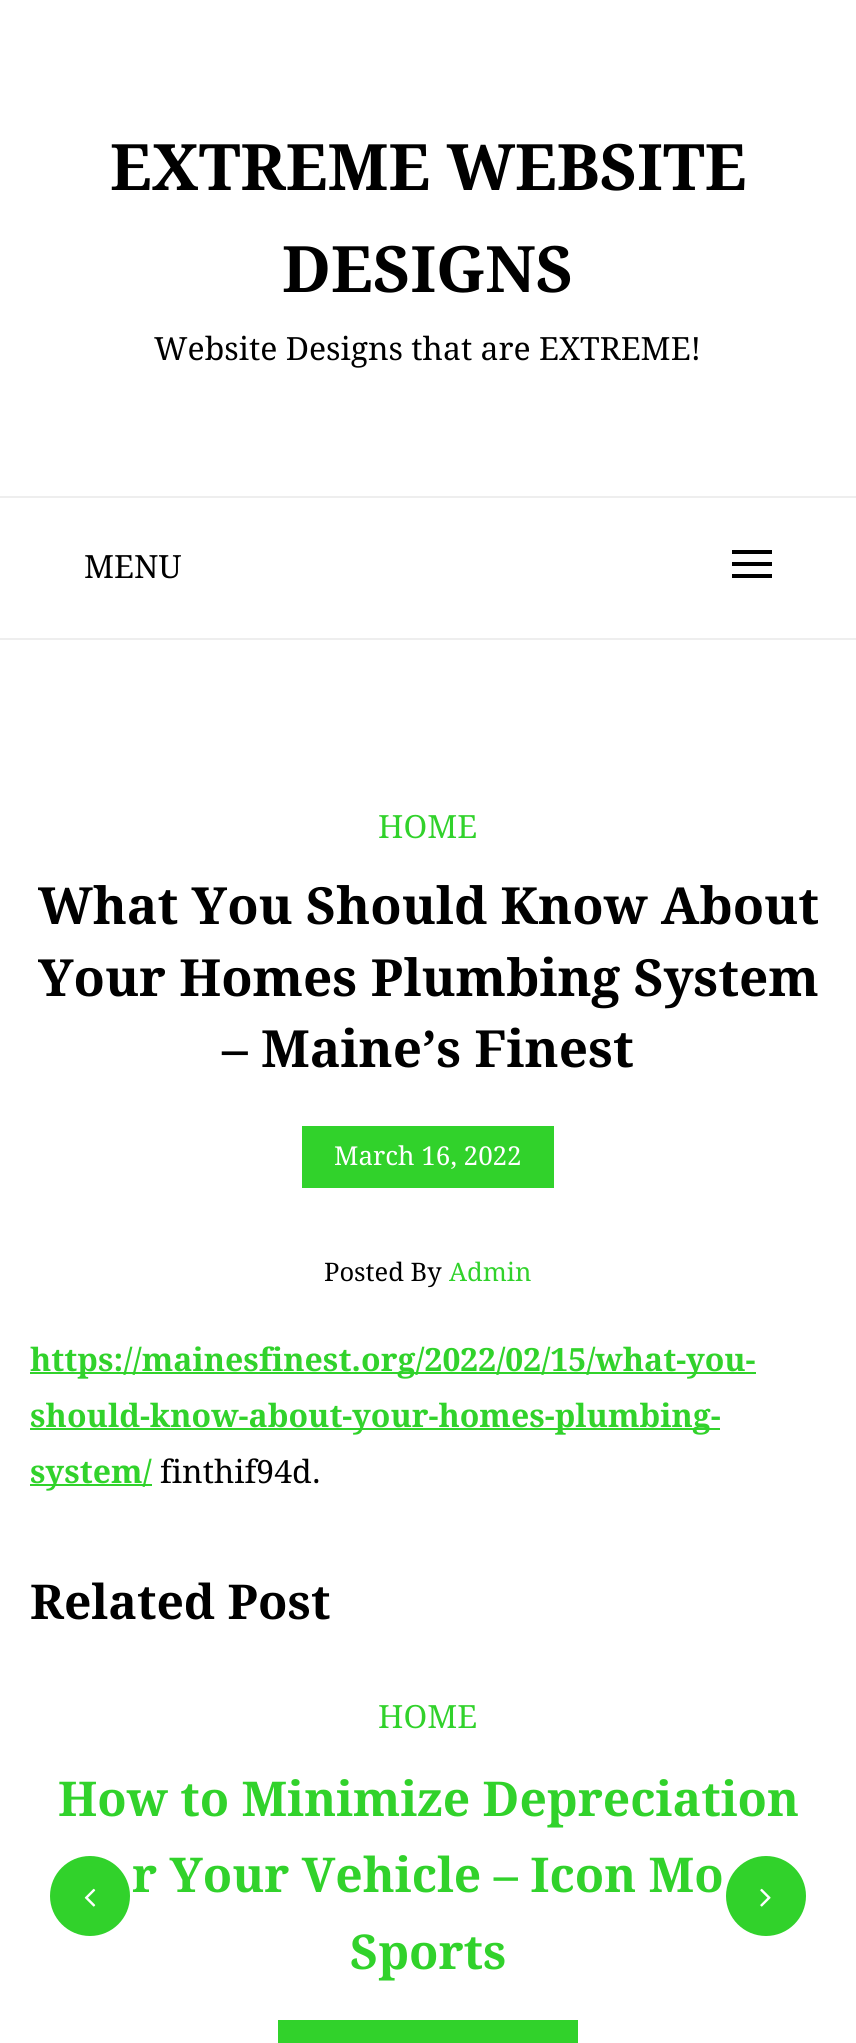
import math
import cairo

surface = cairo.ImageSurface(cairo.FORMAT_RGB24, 856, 2043)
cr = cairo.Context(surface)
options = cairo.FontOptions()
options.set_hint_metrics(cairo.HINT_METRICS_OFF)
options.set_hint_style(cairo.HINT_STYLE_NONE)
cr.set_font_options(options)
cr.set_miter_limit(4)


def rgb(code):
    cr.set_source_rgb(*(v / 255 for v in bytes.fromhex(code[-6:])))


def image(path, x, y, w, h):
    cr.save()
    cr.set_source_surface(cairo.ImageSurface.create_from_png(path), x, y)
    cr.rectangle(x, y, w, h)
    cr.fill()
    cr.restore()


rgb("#ffffff")
cr.paint()
for x, y, w, h, color in [
    (0, 496, 856, 2, "#eeeeee"),
    (0, 638, 856, 2, "#eeeeee"),
    (732, 550, 40, 4, "#000000"),
    (732, 562, 40, 4, "#000000"),
    (732, 574, 40, 4, "#000000"),
    (302, 1126, 252, 62, "#31d22b"),
    (30, 1372, 726, 2, "#31d22b"),
    (30, 1428, 690, 2, "#31d22b"),
    (30, 1484, 122, 2, "#31d22b"),
    (278, 2020, 300, 23, "#31d22b"),
]:
    rgb(color)
    cr.rectangle(x, y, w, h)
    cr.fill()
cr.arc(90, 1896, 40, 0, 2 * math.pi)
cr.fill()
image("img/1.png", 84, 1888, 12, 19)
cr.arc(766, 1896, 40, 0, 2 * math.pi)
cr.fill()
image("img/2.png", 760, 1888, 11, 19)
cr.select_font_face("Droid Serif", cairo.FONT_SLANT_NORMAL, cairo.FONT_WEIGHT_BOLD)
cr.set_font_size(64)
rgb("#000000")
cr.move_to(110, 190)
cr.show_text("EXTREME WEBSITE")
cr.move_to(282, 292)
cr.show_text("DESIGNS")
cr.select_font_face("Droid Serif")
cr.set_font_size(32)
cr.move_to(154, 360)
cr.show_text("Website Designs that are EXTREME!")
cr.move_to(84, 578)
cr.show_text("MENU")
rgb("#31d22b")
cr.move_to(378, 838)
cr.show_text("HOME")
cr.select_font_face("Droid Serif", cairo.FONT_SLANT_NORMAL, cairo.FONT_WEIGHT_BOLD)
cr.set_font_size(51.25)
rgb("#000000")
for x, y, s in [
    (38, 924, "What You Should Know About"),
    (38, 996, "Your Homes Plumbing System"),
    (222, 1067, "– Maine’s Finest"),
]:
    cr.move_to(x, y)
    cr.show_text(s)
cr.select_font_face("Droid Serif")
cr.set_font_size(26)
rgb("#ffffff")
cr.move_to(334, 1165)
cr.show_text("March 16, 2022")
cr.set_font_size(25.5)
rgb("#000000")
cr.move_to(324, 1281)
cr.show_text("Posted By")
rgb("#31d22b")
cr.move_to(449, 1281)
cr.show_text("Admin")
cr.select_font_face("Droid Serif", cairo.FONT_SLANT_NORMAL, cairo.FONT_WEIGHT_BOLD)
cr.set_font_size(32)
for x, y, s in [
    (30, 1371, "https://mainesfinest.org/2022/02/15/what-you-"),
    (30, 1427, "should-know-about-your-homes-plumbing-"),
    (30, 1483, "system/"),
]:
    cr.move_to(x, y)
    cr.show_text(s)
cr.select_font_face("Droid Serif")
rgb("#000000")
cr.move_to(160, 1483)
cr.show_text("finthif94d.")
cr.select_font_face("Droid Serif", cairo.FONT_SLANT_NORMAL, cairo.FONT_WEIGHT_BOLD)
cr.set_font_size(48)
cr.move_to(30, 1619)
cr.show_text("Related Post")
cr.select_font_face("Droid Serif")
cr.set_font_size(32)
rgb("#31d22b")
cr.move_to(378, 1728)
cr.show_text("HOME")
cr.select_font_face("Droid Serif", cairo.FONT_SLANT_NORMAL, cairo.FONT_WEIGHT_BOLD)
cr.set_font_size(48)
for x, y, s in [
    (58, 1816, "How to Minimize Depreciation"),
    (132, 1892, "r Your Vehicle – Icon Mo"),
    (350, 1969, "Sports"),
]:
    cr.move_to(x, y)
    cr.show_text(s)
surface.write_to_png("page.png")
